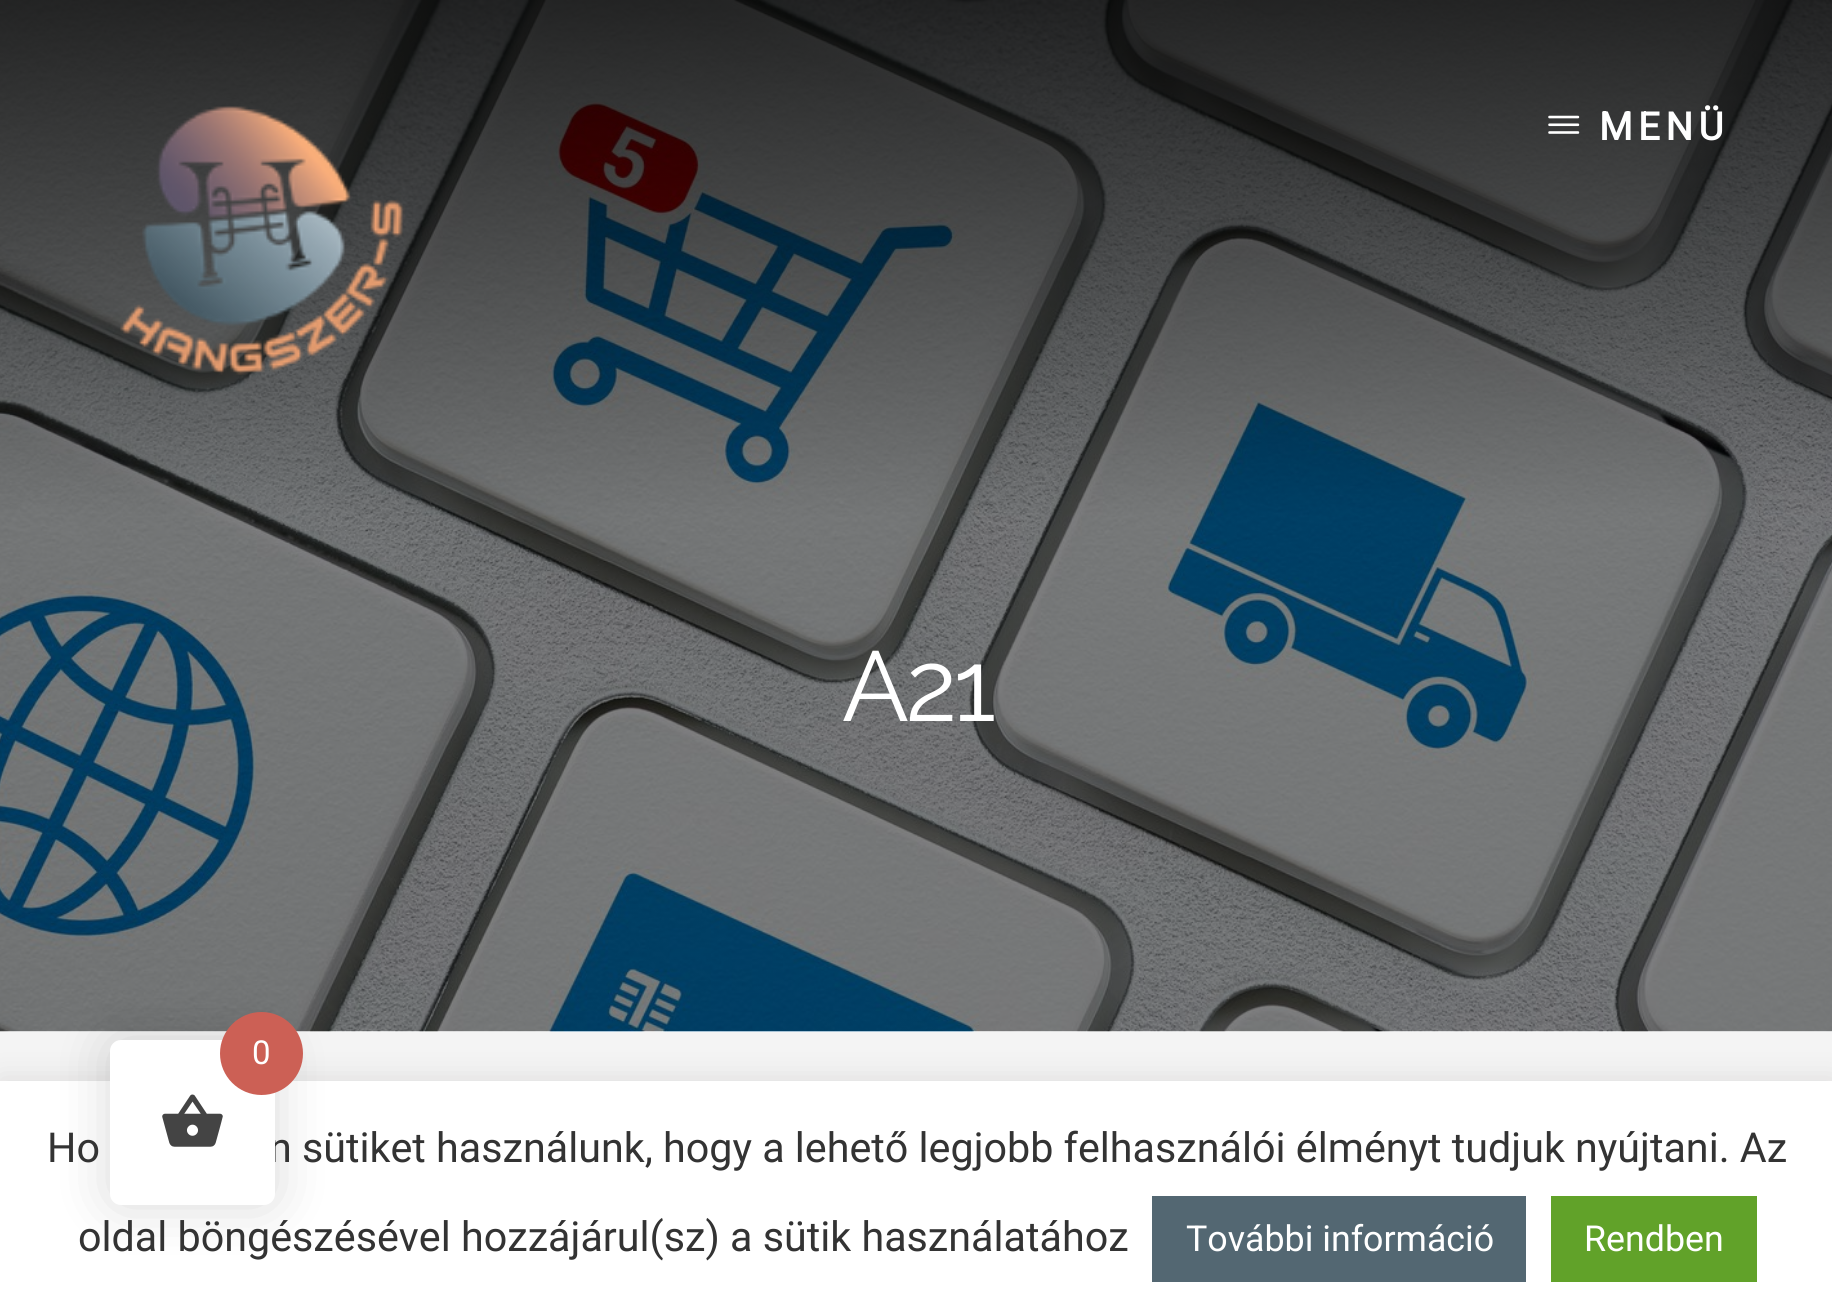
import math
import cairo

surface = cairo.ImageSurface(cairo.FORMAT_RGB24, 1832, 1313)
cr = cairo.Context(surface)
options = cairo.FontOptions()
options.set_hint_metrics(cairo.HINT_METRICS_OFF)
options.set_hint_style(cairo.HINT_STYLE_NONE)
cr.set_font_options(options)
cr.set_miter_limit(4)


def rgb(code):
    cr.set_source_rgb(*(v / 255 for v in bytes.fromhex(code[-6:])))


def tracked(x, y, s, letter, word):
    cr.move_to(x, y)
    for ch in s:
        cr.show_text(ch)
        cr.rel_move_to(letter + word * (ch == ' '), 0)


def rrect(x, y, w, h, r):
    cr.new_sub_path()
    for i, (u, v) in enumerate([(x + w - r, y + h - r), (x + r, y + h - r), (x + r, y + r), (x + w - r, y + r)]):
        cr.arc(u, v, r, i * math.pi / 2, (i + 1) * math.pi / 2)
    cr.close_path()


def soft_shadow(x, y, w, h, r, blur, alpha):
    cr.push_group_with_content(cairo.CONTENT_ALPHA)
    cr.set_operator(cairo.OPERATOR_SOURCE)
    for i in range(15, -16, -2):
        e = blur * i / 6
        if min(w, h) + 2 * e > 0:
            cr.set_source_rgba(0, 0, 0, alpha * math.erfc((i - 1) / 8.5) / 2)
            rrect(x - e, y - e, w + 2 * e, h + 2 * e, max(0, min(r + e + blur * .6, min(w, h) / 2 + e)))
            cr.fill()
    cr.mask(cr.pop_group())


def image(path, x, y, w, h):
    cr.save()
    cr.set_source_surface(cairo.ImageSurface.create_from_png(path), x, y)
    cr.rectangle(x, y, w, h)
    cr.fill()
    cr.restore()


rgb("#f4f4f4")
cr.paint()
image("img/1.png", 0, 0, 1832, 1032)
image("img/2.png", 120, 106, 285, 269)
image("img/3.png", 1548, 115, 32, 19)
rgb("#acabab")
soft_shadow(0, 1078, 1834, 234, 0, 14, 0.3)
rgb("#ffffff")
cr.rectangle(0, 1081, 1832, 232)
cr.fill()
rgb("#000000")
soft_shadow(110, 1040, 165, 165, 11, 27.5, 0.15)
rgb("#536772")
cr.rectangle(1152, 1196, 374, 86)
cr.fill()
rgb("#61a229")
cr.rectangle(1551, 1196, 206, 86)
cr.fill()
cr.select_font_face("Roboto", cairo.FONT_SLANT_NORMAL, cairo.FONT_WEIGHT_BOLD)
cr.set_font_size(38.5)
rgb("#ffffff")
tracked(1599, 140, "MENÜ", 5.5, 0)
cr.select_font_face("Raleway Thin")
cr.set_font_size(99)
tracked(842, 721, "A21", -3.5, 0)
cr.select_font_face("Roboto")
cr.set_font_size(41.25)
rgb("#333333")
cr.move_to(47, 1162)
cr.show_text("Ho")
cr.move_to(269, 1162)
cr.show_text("n sütiket használunk, hogy a lehető legjobb felhasználói élményt tudjuk nyújtani. Az")
rgb("#ffffff")
rrect(110, 1040, 165, 165, 11)
cr.fill()
image("img/4.png", 162, 1094, 61, 53)
rgb("#cc6055")
cr.arc(261.5, 1053.5, 41.5, 0, 2 * math.pi)
cr.fill()
cr.set_font_size(33)
rgb("#ffffff")
cr.move_to(252, 1064)
cr.show_text("0")
cr.set_font_size(41.25)
rgb("#333333")
cr.move_to(78, 1251)
cr.show_text("oldal böngészésével hozzájárul(sz) a sütik használatához")
cr.set_font_size(35.75)
rgb("#ffffff")
cr.move_to(1186, 1251)
cr.show_text("További információ")
cr.move_to(1584, 1251)
cr.show_text("Rendben")
surface.write_to_png("page.png")
